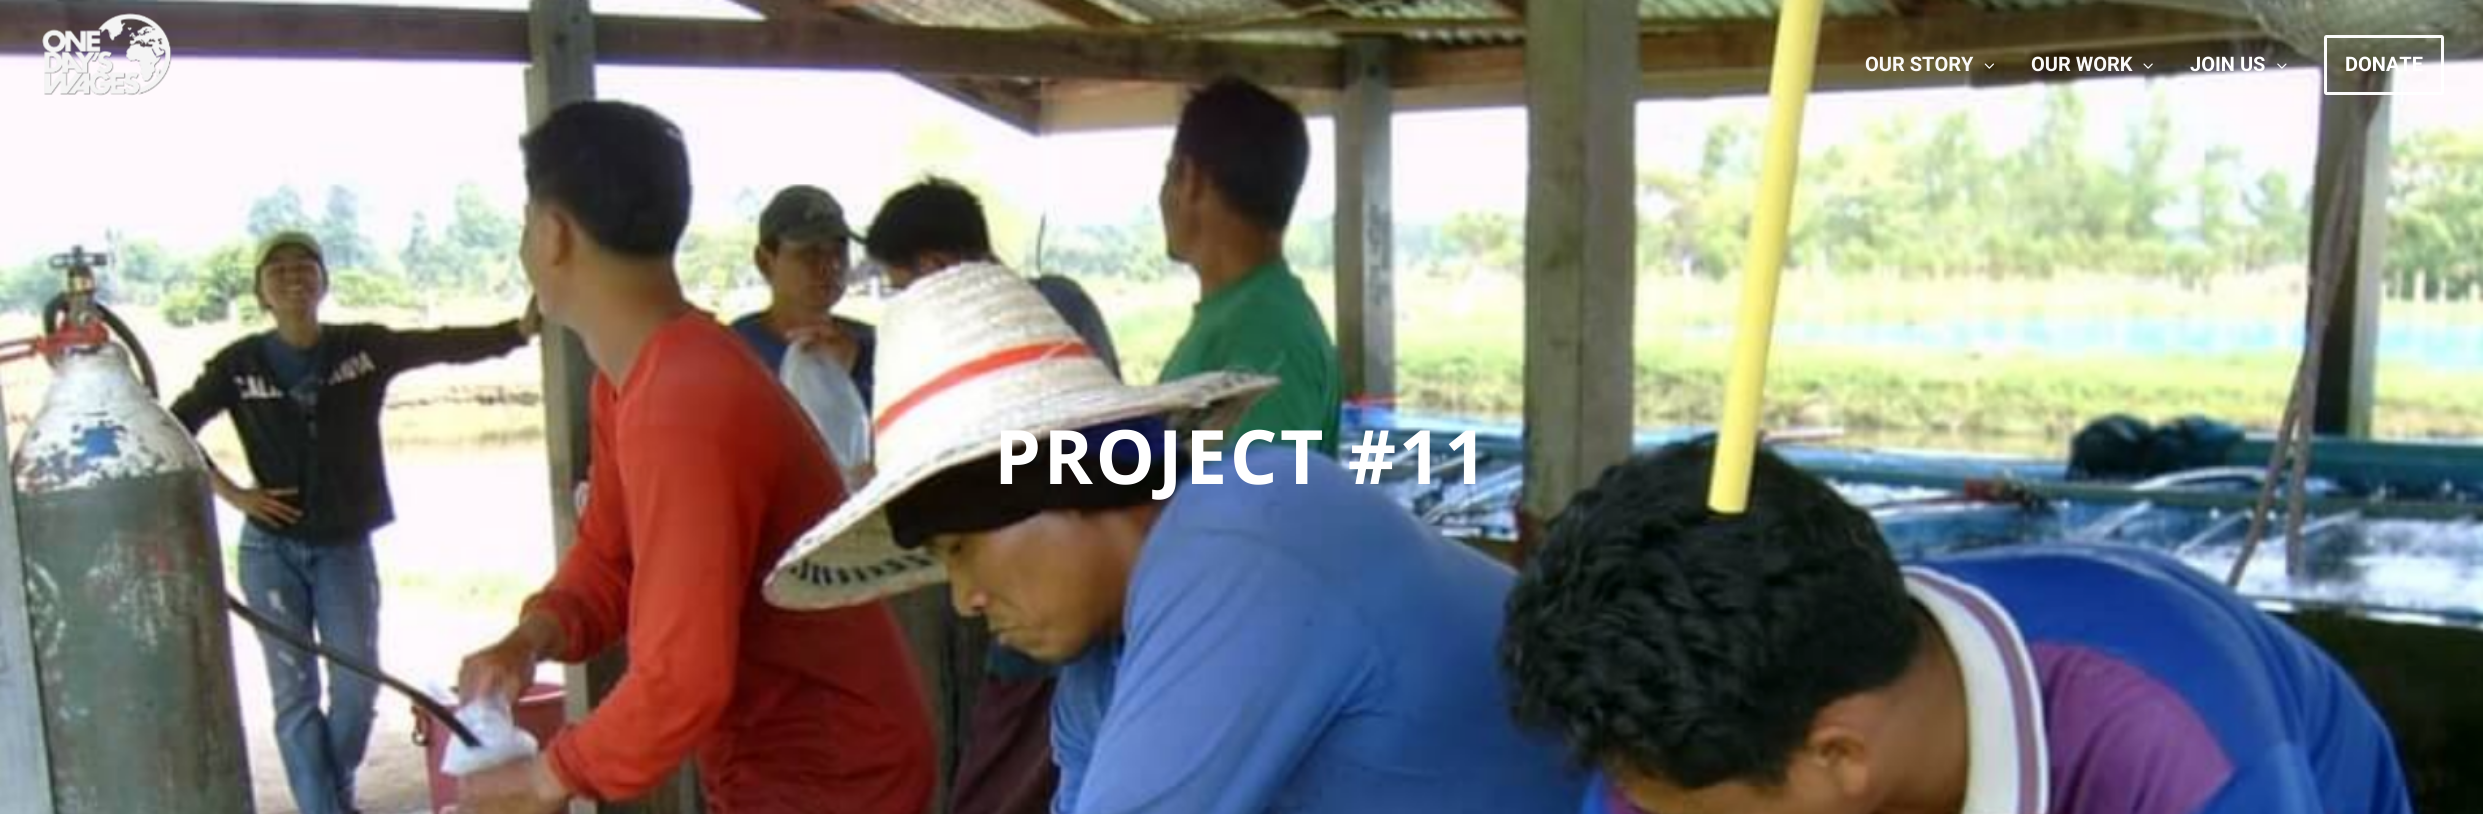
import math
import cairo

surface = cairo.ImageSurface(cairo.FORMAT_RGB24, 2483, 814)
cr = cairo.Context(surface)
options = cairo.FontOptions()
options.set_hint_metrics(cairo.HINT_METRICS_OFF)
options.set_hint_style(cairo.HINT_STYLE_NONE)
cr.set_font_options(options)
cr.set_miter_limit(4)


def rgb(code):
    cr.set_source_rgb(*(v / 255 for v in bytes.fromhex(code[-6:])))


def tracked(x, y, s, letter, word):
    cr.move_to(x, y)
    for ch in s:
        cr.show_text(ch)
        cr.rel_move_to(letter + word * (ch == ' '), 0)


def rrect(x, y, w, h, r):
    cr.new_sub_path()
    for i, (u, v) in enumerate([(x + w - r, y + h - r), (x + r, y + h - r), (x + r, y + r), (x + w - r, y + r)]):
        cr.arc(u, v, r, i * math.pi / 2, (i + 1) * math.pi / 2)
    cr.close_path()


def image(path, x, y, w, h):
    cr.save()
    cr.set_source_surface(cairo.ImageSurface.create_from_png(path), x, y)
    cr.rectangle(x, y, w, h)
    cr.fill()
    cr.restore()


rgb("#ffffff")
cr.paint()
image("img/5.png", 0, 0, 2483, 814)
image("img/1.png", 42, 13, 130, 83)
image("img/2.png", 1984, 63, 10, 6)
image("img/3.png", 2143, 63, 10, 6)
image("img/4.png", 2277, 63, 10, 6)
rrect(2325.5, 36.5, 117, 57, 1)
cr.set_source_rgba(1, 1, 1, 0.97)
cr.set_line_width(3)
cr.stroke()
cr.select_font_face("Roboto", cairo.FONT_SLANT_NORMAL, cairo.FONT_WEIGHT_BOLD)
cr.set_font_size(20)
rgb("#fafaf9")
cr.move_to(1865, 71)
cr.show_text("OUR STORY")
cr.move_to(2031, 71)
cr.show_text("OUR WORK")
rgb("#ffffff")
cr.move_to(2190, 71)
cr.show_text("JOIN US")
cr.move_to(2345, 71)
cr.show_text("DONATE")
cr.select_font_face("Open Sans", cairo.FONT_SLANT_NORMAL, cairo.FONT_WEIGHT_BOLD)
cr.set_font_size(75)
tracked(994, 484, "PROJECT #11", 2.5, 0)
surface.write_to_png("page.png")
